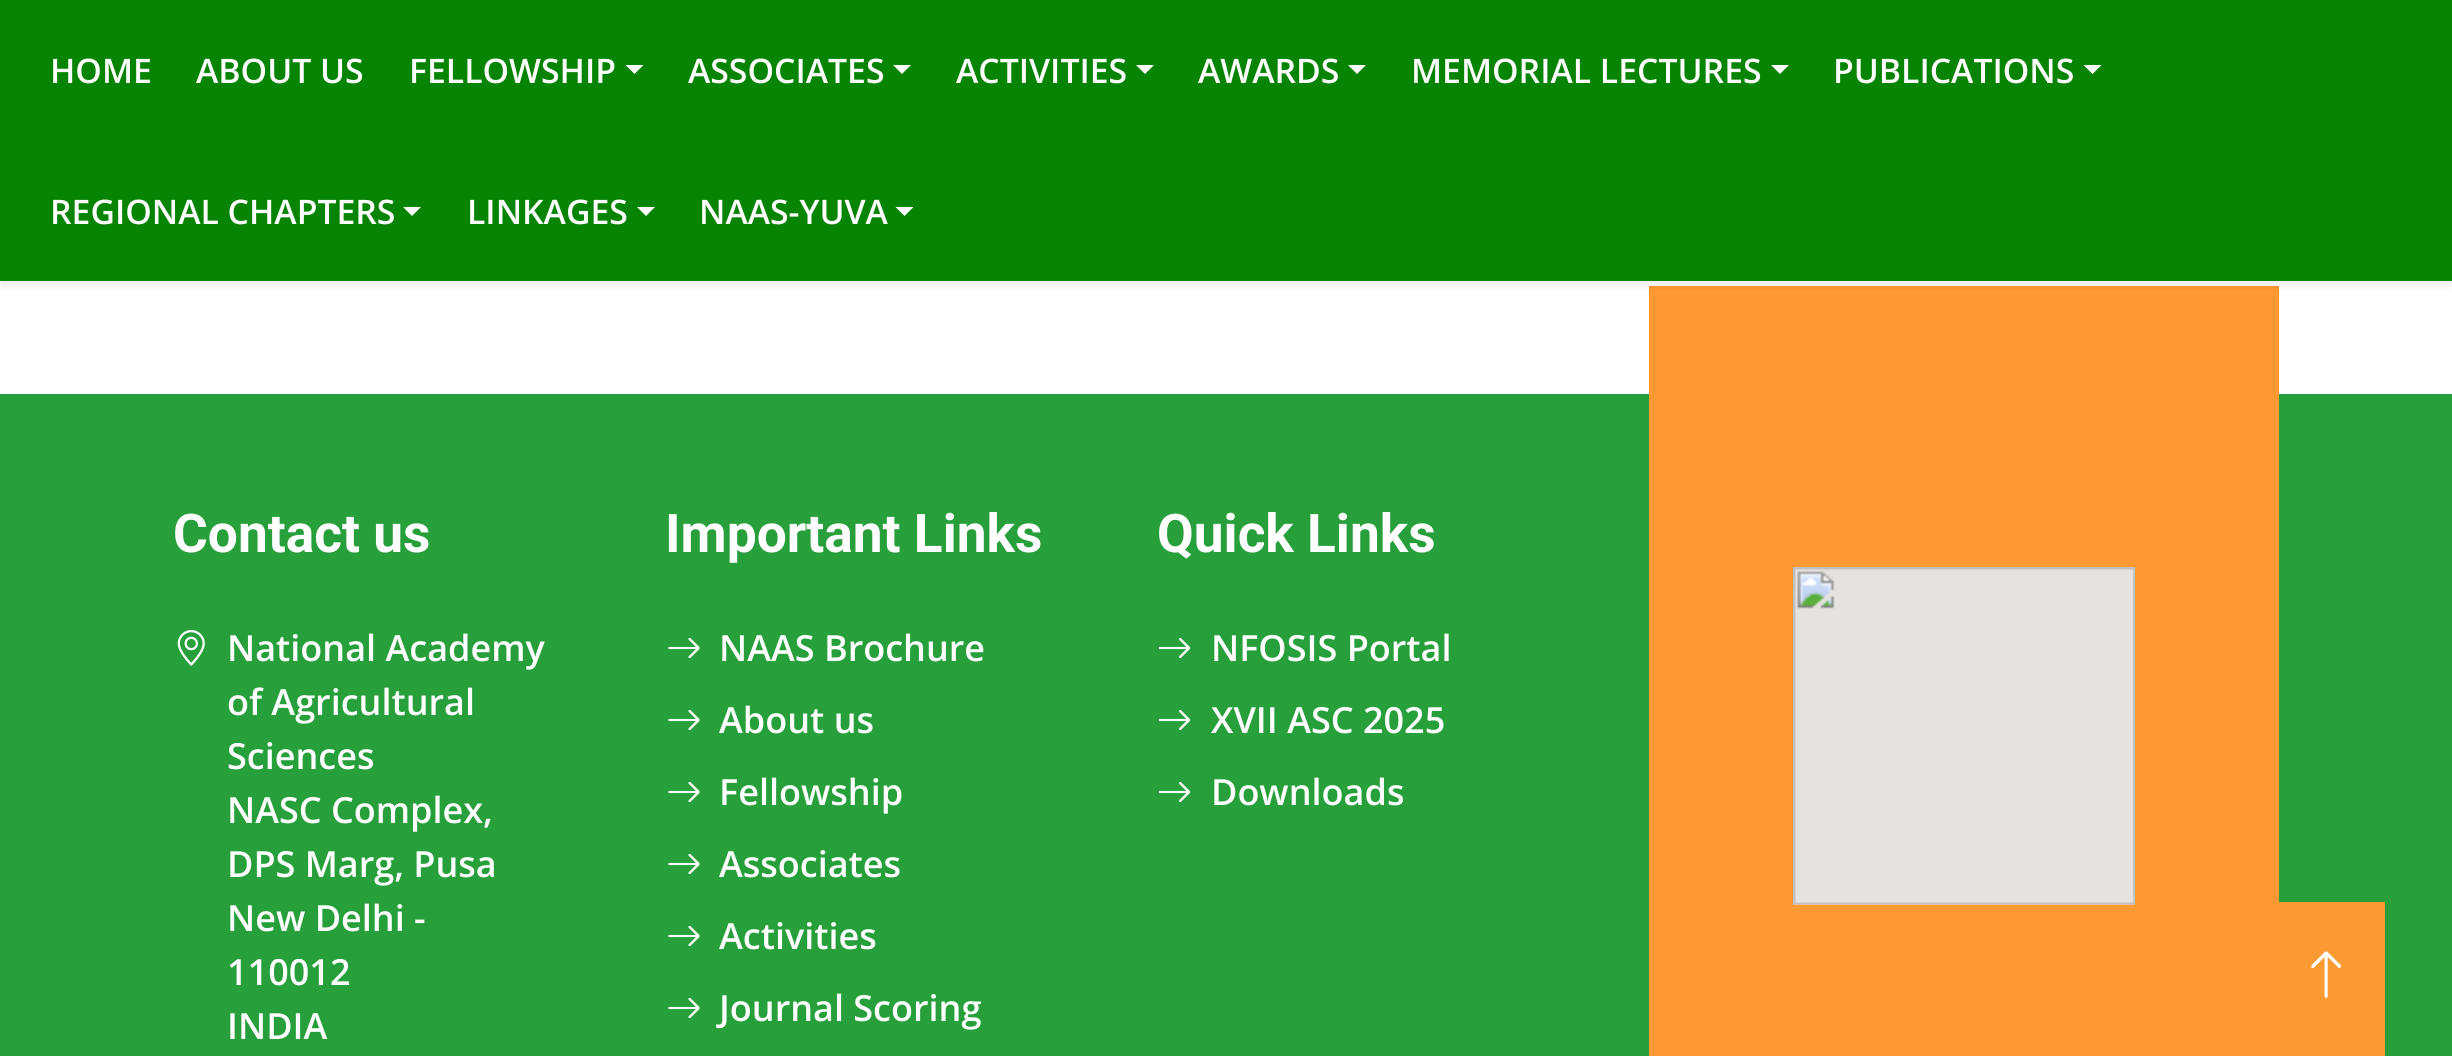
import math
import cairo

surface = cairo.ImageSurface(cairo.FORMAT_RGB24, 2452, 1056)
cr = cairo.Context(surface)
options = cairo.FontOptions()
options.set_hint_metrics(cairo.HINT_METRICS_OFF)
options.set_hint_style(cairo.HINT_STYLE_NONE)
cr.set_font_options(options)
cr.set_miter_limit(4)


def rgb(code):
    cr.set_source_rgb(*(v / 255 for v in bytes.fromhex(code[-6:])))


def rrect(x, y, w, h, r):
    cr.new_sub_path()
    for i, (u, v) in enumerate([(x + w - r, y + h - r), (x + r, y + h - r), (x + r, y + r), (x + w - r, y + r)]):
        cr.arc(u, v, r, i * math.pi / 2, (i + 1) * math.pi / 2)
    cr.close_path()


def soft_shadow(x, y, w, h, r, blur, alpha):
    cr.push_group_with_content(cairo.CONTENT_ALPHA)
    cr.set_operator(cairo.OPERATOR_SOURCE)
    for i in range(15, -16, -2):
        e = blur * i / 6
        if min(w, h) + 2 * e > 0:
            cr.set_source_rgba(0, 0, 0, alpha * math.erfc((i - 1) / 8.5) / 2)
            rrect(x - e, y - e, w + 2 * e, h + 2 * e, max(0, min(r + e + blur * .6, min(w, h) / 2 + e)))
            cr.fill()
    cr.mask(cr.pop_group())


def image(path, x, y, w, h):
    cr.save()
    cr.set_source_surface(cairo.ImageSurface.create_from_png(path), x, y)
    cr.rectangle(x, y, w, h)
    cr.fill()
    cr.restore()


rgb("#ffffff")
cr.paint()
rgb("#27a03c")
cr.rectangle(0, 394, 2452, 662)
cr.fill()
rgb("#ff9933")
cr.rectangle(1649, 286, 630, 770)
cr.fill()
rgb("#000000")
soft_shadow(0, 5, 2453, 281, 0, 4.5, 0.07)
rgb("#088404")
cr.rectangle(0, 0, 2452, 281)
cr.fill()
rgb("#ffffff")
cr.new_path()
cr.move_to(625.5, 65)
cr.line_to(643.5, 65)
cr.line_to(634.5, 74)
cr.close_path()
cr.fill()
cr.new_path()
cr.move_to(893, 65)
cr.line_to(911, 65)
cr.line_to(902, 74)
cr.close_path()
cr.fill()
cr.new_path()
cr.move_to(1136, 65)
cr.line_to(1154, 65)
cr.line_to(1145, 74)
cr.close_path()
cr.fill()
cr.new_path()
cr.move_to(1348, 65)
cr.line_to(1366, 65)
cr.line_to(1357, 74)
cr.close_path()
cr.fill()
cr.new_path()
cr.move_to(1771, 65)
cr.line_to(1789, 65)
cr.line_to(1780, 74)
cr.close_path()
cr.fill()
cr.new_path()
cr.move_to(2083.5, 65)
cr.line_to(2101.5, 65)
cr.line_to(2092.5, 74)
cr.close_path()
cr.fill()
cr.new_path()
cr.move_to(403, 207)
cr.line_to(421, 207)
cr.line_to(412, 216)
cr.close_path()
cr.fill()
cr.new_path()
cr.move_to(637, 207)
cr.line_to(655, 207)
cr.line_to(646, 216)
cr.close_path()
cr.fill()
cr.new_path()
cr.move_to(895.5, 207)
cr.line_to(913.5, 207)
cr.line_to(904.5, 216)
cr.close_path()
cr.fill()
rgb("#fb9933")
cr.rectangle(2279, 902, 106, 154)
cr.fill()
image("img/1.png", 177, 630, 28, 36)
image("img/2.png", 668, 637, 32, 22)
image("img/2.png", 668, 709, 32, 22)
image("img/2.png", 668, 781, 32, 22)
image("img/2.png", 668, 853, 32, 22)
image("img/2.png", 668, 925, 32, 22)
image("img/2.png", 668, 997, 32, 22)
image("img/3.png", 1158, 638, 33, 20)
image("img/3.png", 1158, 710, 33, 20)
image("img/3.png", 1158, 782, 33, 20)
image("img/4.png", 1793, 567, 343, 338)
cr.rectangle(2271, 903, 113, 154)
cr.set_source_rgba(1, 0.6, 0.2, 0.98)
cr.stroke()
image("img/5.png", 2311, 951, 30, 47)
cr.select_font_face("Open Sans SemiBold")
cr.set_font_size(33.75)
rgb("#ffffff")
for x, y, s in [
    (50, 83, "HOME"),
    (196, 83, "ABOUT US"),
    (409, 83, "FELLOWSHIP"),
    (688, 83, "ASSOCIATES"),
    (956, 83, "ACTIVITIES"),
    (1198, 83, "AWARDS"),
    (1411, 83, "MEMORIAL LECTURES"),
    (1833, 83, "PUBLICATIONS"),
    (50, 224, "REGIONAL CHAPTERS"),
    (467, 224, "LINKAGES"),
    (699, 224, "NAAS-YUVA"),
]:
    cr.move_to(x, y)
    cr.show_text(s)
cr.select_font_face("Roboto", cairo.FONT_SLANT_NORMAL, cairo.FONT_WEIGHT_BOLD)
cr.set_font_size(53.25)
cr.move_to(173, 552)
cr.show_text("Contact us")
cr.select_font_face("Open Sans SemiBold")
cr.set_font_size(36)
for x, y, s in [
    (227, 661, "National Academy"),
    (227, 715, "of Agricultural"),
    (227, 769, "Sciences"),
    (227, 823, "NASC Complex,"),
    (227, 877, "DPS Marg, Pusa"),
    (227, 931, "New Delhi -"),
    (227, 985, "110012"),
    (227, 1039, "INDIA"),
]:
    cr.move_to(x, y)
    cr.show_text(s)
cr.select_font_face("Roboto", cairo.FONT_SLANT_NORMAL, cairo.FONT_WEIGHT_BOLD)
cr.set_font_size(53.25)
cr.move_to(665, 552)
cr.show_text("Important Links")
cr.select_font_face("Open Sans SemiBold")
cr.set_font_size(36)
for x, y, s in [
    (719, 661, "NAAS Brochure"),
    (719, 733, "About us"),
    (719, 805, "Fellowship"),
    (719, 877, "Associates"),
    (719, 949, "Activities"),
    (719, 1021, "Journal Scoring"),
]:
    cr.move_to(x, y)
    cr.show_text(s)
cr.select_font_face("Roboto", cairo.FONT_SLANT_NORMAL, cairo.FONT_WEIGHT_BOLD)
cr.set_font_size(53.25)
cr.move_to(1157, 552)
cr.show_text("Quick Links")
cr.select_font_face("Open Sans SemiBold")
cr.set_font_size(36)
for x, y, s in [
    (1211, 661, "NFOSIS Portal"),
    (1211, 733, "XVII ASC 2025"),
    (1211, 805, "Downloads"),
]:
    cr.move_to(x, y)
    cr.show_text(s)
surface.write_to_png("page.png")
